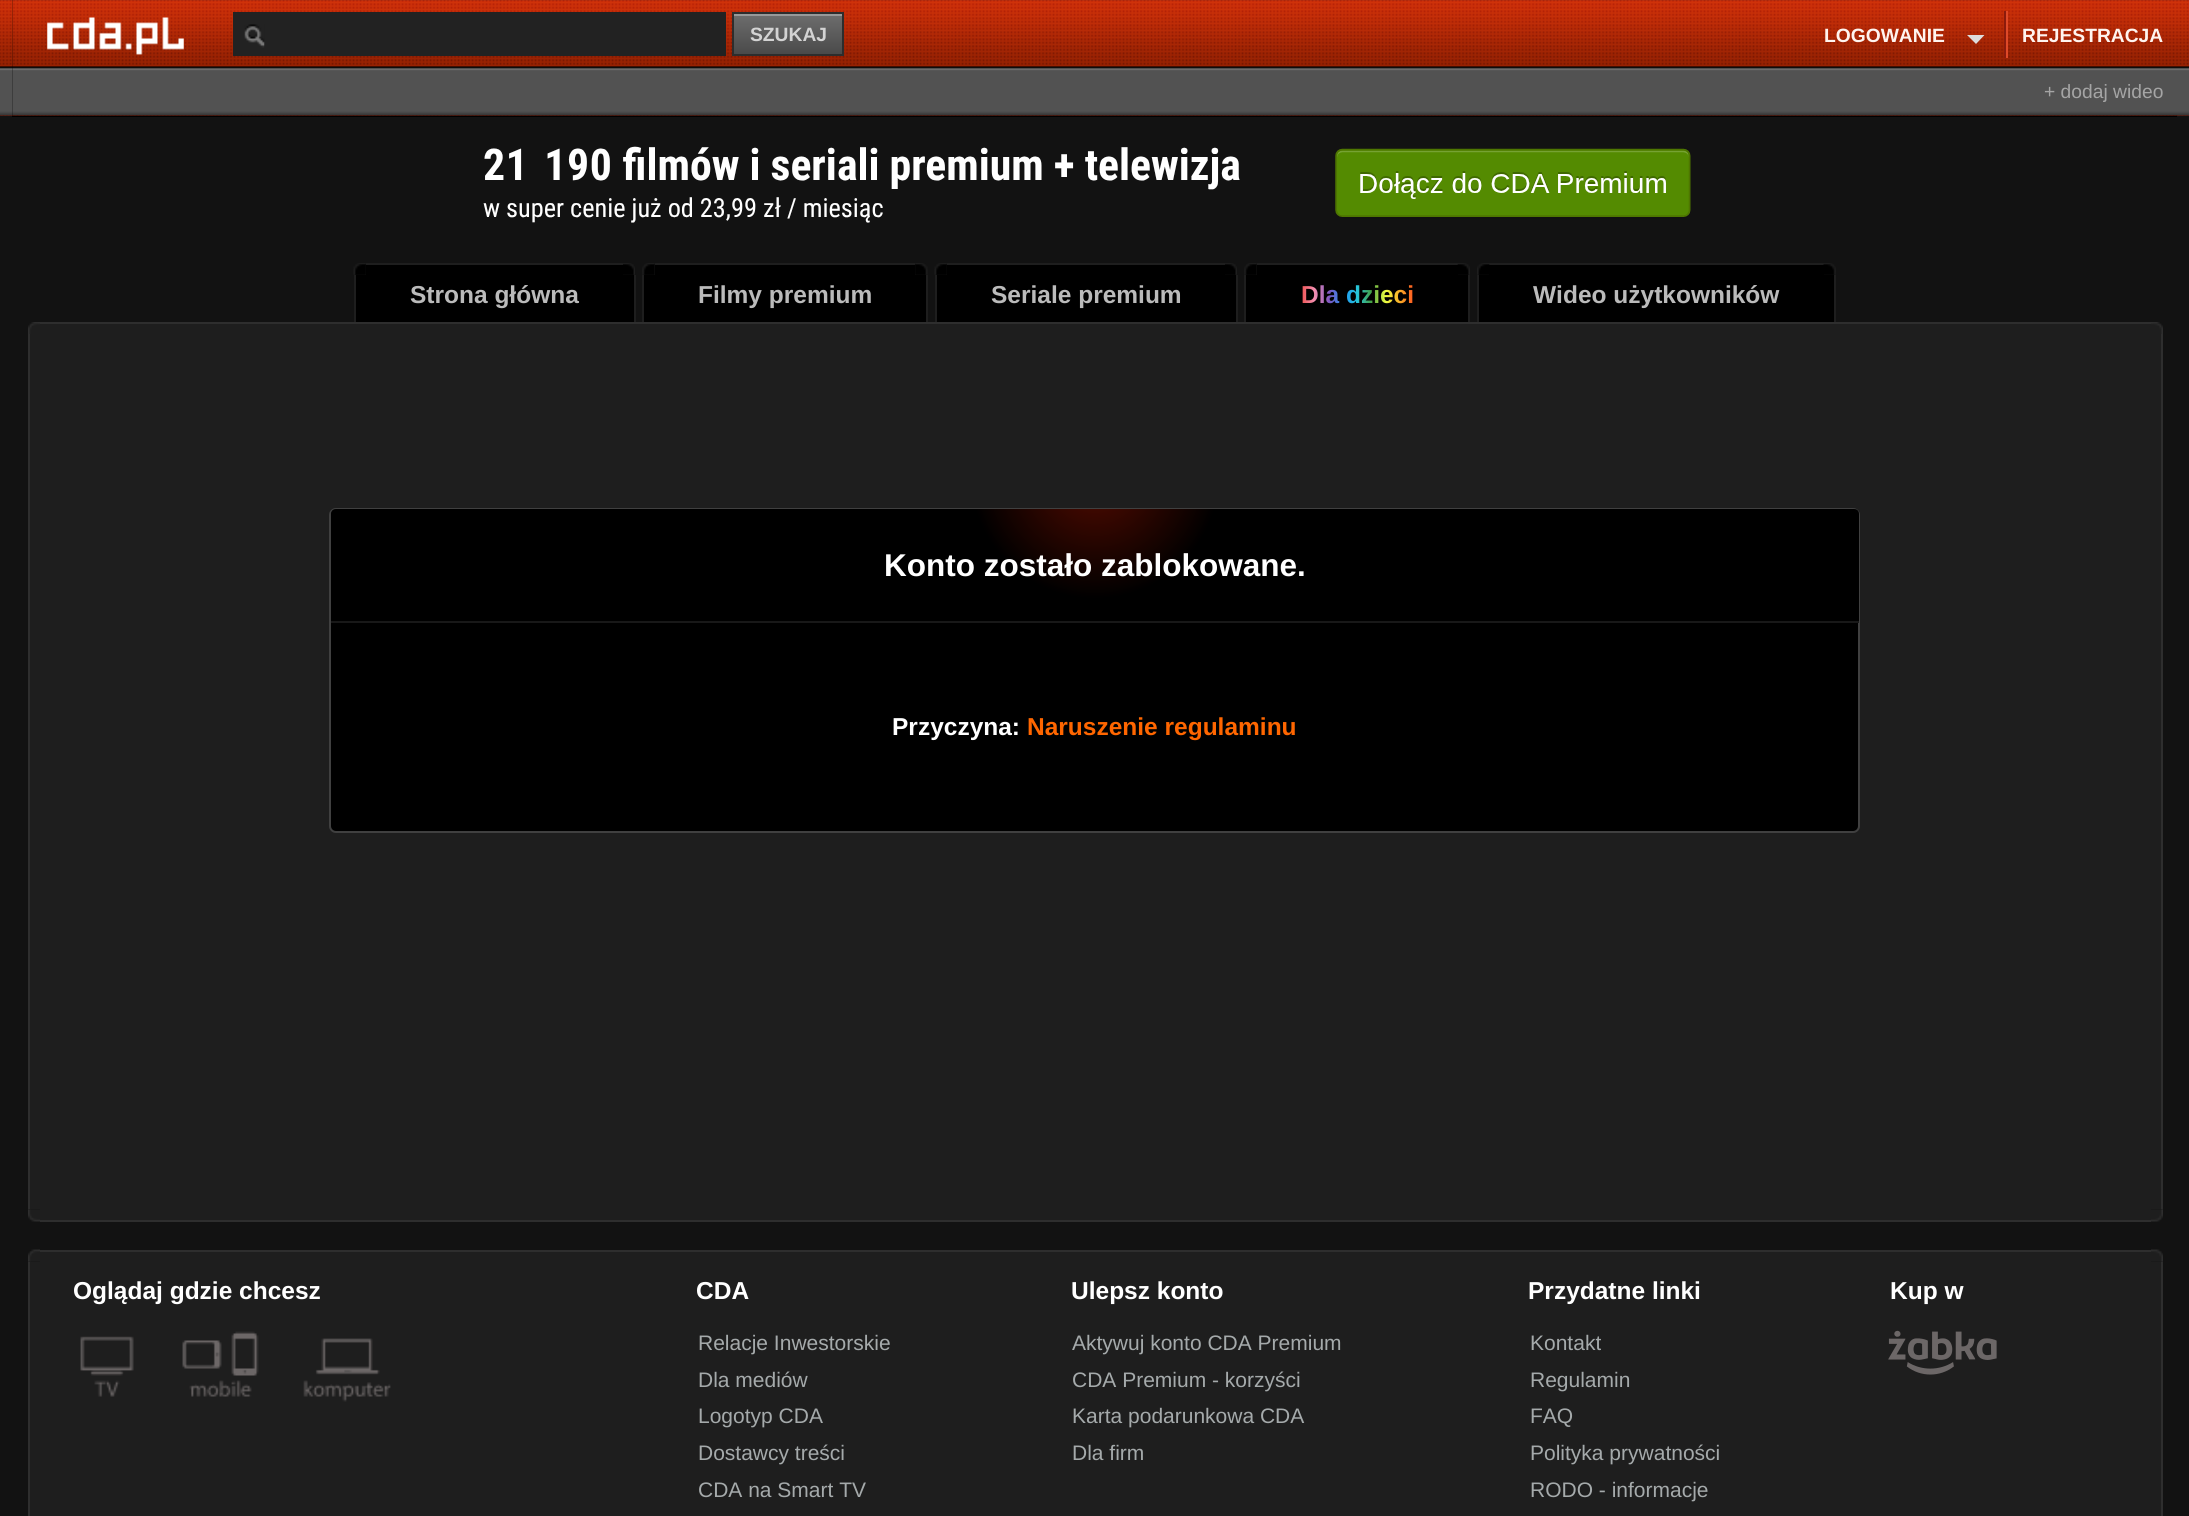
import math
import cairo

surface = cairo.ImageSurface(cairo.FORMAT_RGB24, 2189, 1516)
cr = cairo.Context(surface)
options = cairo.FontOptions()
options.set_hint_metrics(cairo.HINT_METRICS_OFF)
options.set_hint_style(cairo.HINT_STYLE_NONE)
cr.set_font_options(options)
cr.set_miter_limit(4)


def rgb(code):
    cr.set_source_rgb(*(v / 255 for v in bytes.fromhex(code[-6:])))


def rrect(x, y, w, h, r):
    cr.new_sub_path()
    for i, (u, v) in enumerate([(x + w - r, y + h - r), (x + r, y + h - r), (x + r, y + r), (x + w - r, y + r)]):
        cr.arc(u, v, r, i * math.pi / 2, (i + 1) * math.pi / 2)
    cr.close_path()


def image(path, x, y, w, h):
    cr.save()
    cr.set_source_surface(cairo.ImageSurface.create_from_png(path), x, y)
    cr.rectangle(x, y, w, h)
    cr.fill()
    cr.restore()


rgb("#121212")
cr.paint()
image("img/1.png", 0, 0, 2189, 116)
rgb("#000000")
cr.rectangle(12, 0, 2165, 117)
cr.fill()
image("img/2.png", 12, 0, 2165, 116)
image("img/3.png", 47, 17, 137, 38)
rgb("#222222")
cr.rectangle(233, 12, 493, 44)
cr.fill()
image("img/4.png", 244, 24, 21, 24)
gradient = cairo.LinearGradient(788, 14, 788, 54)
gradient.add_color_stop_rgba(0, 0.431, 0.431, 0.431, 1)
gradient.add_color_stop_rgba(1, 0.29, 0.29, 0.29, 1)
cr.set_source(gradient)
cr.rectangle(734, 16, 108, 38)
cr.fill()
rgb("#999999")
cr.rectangle(733, 14, 109, 2)
cr.fill()
cr.rectangle(733, 13, 110, 42)
rgb("#2d2d2d")
cr.stroke()
rgb("#dddddd")
cr.new_path()
cr.move_to(1967, 35)
cr.line_to(1984.5, 35)
cr.line_to(1976, 44)
cr.close_path()
cr.fill()
rgb("#df4928")
cr.rectangle(2006, 11, 2, 47)
cr.fill()
rgb("#8c1b0c")
cr.rectangle(2004, 11, 2, 47)
cr.fill()
image("img/5.png", 483, 146, 1208, 77)
image("img/6.png", 353, 263, 13, 12)
image("img/7.png", 623, 263, 12, 12)
for x, y, w, h, color in [
    (366, 263, 257, 2, "#1e1e1e"),
    (356, 275, 10, 47, "#000000"),
    (354, 275, 2, 47, "#1e1e1e"),
    (366, 265, 257, 57, "#000000"),
    (623, 275, 11, 47, "#000000"),
    (634, 275, 2, 47, "#1e1e1e"),
]:
    rgb(color)
    cr.rectangle(x, y, w, h)
    cr.fill()
image("img/8.png", 642, 263, 13, 12)
image("img/9.png", 915, 263, 13, 12)
for x, y, w, h, color in [
    (655, 263, 260, 2, "#1e1e1e"),
    (644, 275, 11, 47, "#000000"),
    (642, 275, 2, 47, "#1e1e1e"),
    (655, 265, 260, 57, "#000000"),
    (915, 275, 11, 47, "#000000"),
    (926, 275, 2, 47, "#1e1e1e"),
]:
    rgb(color)
    cr.rectangle(x, y, w, h)
    cr.fill()
image("img/6.png", 934, 263, 13, 12)
image("img/10.png", 1225, 263, 12, 12)
for x, y, w, h, color in [
    (947, 263, 278, 2, "#1e1e1e"),
    (937, 275, 10, 47, "#000000"),
    (935, 275, 2, 47, "#1e1e1e"),
    (947, 265, 278, 57, "#000000"),
    (1225, 275, 11, 47, "#000000"),
    (1236, 275, 2, 47, "#1e1e1e"),
]:
    rgb(color)
    cr.rectangle(x, y, w, h)
    cr.fill()
image("img/8.png", 1244, 263, 13, 12)
cr.rectangle(1257, 263, 201, 2)
cr.fill()
rgb("#000000")
cr.rectangle(1257, 265, 201, 57)
cr.fill()
image("img/11.png", 1457, 263, 13, 12)
for x, y, w, h, color in [
    (1246, 275, 11, 47, "#000000"),
    (1244, 275, 2, 47, "#1e1e1e"),
    (1458, 275, 10, 47, "#000000"),
    (1468, 275, 2, 47, "#1e1e1e"),
    (1489, 263, 335, 2, "#1e1e1e"),
    (1489, 265, 335, 57, "#000000"),
]:
    rgb(color)
    cr.rectangle(x, y, w, h)
    cr.fill()
image("img/12.png", 1477, 263, 13, 12)
image("img/13.png", 1823, 263, 13, 12)
for x, y, w, h, color in [
    (1479, 275, 10, 47, "#000000"),
    (1477, 275, 2, 47, "#1e1e1e"),
    (1824, 275, 10, 47, "#000000"),
    (1834, 275, 2, 47, "#1e1e1e"),
]:
    rgb(color)
    cr.rectangle(x, y, w, h)
    cr.fill()
image("img/14.png", 28, 322, 12, 12)
cr.rectangle(40, 324, 2111, 10)
cr.fill()
rgb("#2e2e2e")
cr.rectangle(40, 322, 2111, 2)
cr.fill()
image("img/15.png", 2151, 322, 12, 12)
for x, y, w, h, color in [
    (30, 334, 2131, 875, "#1e1e1e"),
    (2161, 334, 2, 875, "#2e2e2e"),
    (28, 334, 2, 875, "#2e2e2e"),
]:
    rgb(color)
    cr.rectangle(x, y, w, h)
    cr.fill()
rgb("#000000")
rrect(330, 509, 1529, 323, 6)
cr.fill_preserve()
rgb("#404040")
cr.stroke()
gradient = cairo.RadialGradient(1095, 474, 0, 1095, 474, 778)
gradient.add_color_stop_rgba(0, 0.333, 0.043, 0, 1)
gradient.add_color_stop_rgba(0.16, 0, 0, 0, 1)
cr.set_source(gradient)
cr.new_path()
cr.move_to(336, 509)
cr.line_to(1854, 509)
cr.curve_to(1857, 509, 1859, 511, 1859, 514)
cr.line_to(1859, 621)
cr.line_to(331, 621)
cr.line_to(331, 514)
cr.curve_to(331, 511, 333, 509, 336, 509)
cr.close_path()
cr.fill()
rgb("#181818")
cr.rectangle(331, 621, 1528, 2)
cr.fill()
image("img/16.png", 28, 1209, 12, 13)
rgb("#1e1e1e")
cr.rectangle(40, 1209, 2111, 11)
cr.fill()
rgb("#2e2e2e")
cr.rectangle(40, 1220, 2111, 2)
cr.fill()
image("img/17.png", 2151, 1209, 12, 13)
image("img/18.png", 28, 1249, 12, 13)
rgb("#1e1e1e")
cr.rectangle(40, 1252, 2111, 10)
cr.fill()
rgb("#2e2e2e")
cr.rectangle(40, 1250, 2111, 2)
cr.fill()
image("img/19.png", 2151, 1249, 12, 13)
for x, y, w, h, color in [
    (30, 1262, 2131, 254, "#1e1e1e"),
    (2161, 1262, 2, 254, "#2e2e2e"),
    (28, 1262, 2, 254, "#2e2e2e"),
]:
    rgb(color)
    cr.rectangle(x, y, w, h)
    cr.fill()
image("img/20.png", 80, 1331, 311, 71)
image("img/21.png", 1888, 1330, 109, 45)
cr.select_font_face("Liberation Sans", cairo.FONT_SLANT_NORMAL, cairo.FONT_WEIGHT_BOLD)
cr.set_font_size(19.25)
rgb("#d3d3d3")
cr.move_to(750, 41)
cr.show_text("SZUKAJ")
rgb("#fff4ef")
cr.move_to(1824, 42)
cr.show_text("LOGOWANIE")
cr.move_to(2022, 42)
cr.show_text("REJESTRACJA")
cr.select_font_face("Liberation Sans")
rgb("#a5a5a5")
cr.move_to(2044, 98)
cr.show_text("+ dodaj wideo")
cr.select_font_face("Liberation Sans", cairo.FONT_SLANT_NORMAL, cairo.FONT_WEIGHT_BOLD)
cr.set_font_size(24.5)
rgb("#bbbbbb")
for x, y, s in [
    (410, 303, "Strona główna"),
    (698, 303, "Filmy premium"),
    (991, 303, "Seriale premium"),
]:
    cr.move_to(x, y)
    cr.show_text(s)
gradient = cairo.LinearGradient(1301, 294, 1414, 294)
gradient.add_color_stop_rgba(0, 0.937, 0.325, 0.314, 1)
gradient.add_color_stop_rgba(0.12, 0.957, 0.561, 0.694, 1)
gradient.add_color_stop_rgba(0.25, 0.494, 0.341, 0.761, 1)
gradient.add_color_stop_rgba(0.38, 0.129, 0.588, 0.953, 1)
gradient.add_color_stop_rgba(0.5, 0.149, 0.776, 0.855, 1)
gradient.add_color_stop_rgba(0.62, 0.263, 0.627, 0.278, 1)
gradient.add_color_stop_rgba(0.75, 0.933, 1, 0.255, 1)
gradient.add_color_stop_rgba(0.88, 0.976, 0.659, 0.145, 1)
gradient.add_color_stop_rgba(1, 1, 0.341, 0.133, 1)
cr.set_source(gradient)
cr.move_to(1301, 303)
cr.show_text("Dla dzieci")
rgb("#bbbbbb")
cr.move_to(1533, 303)
cr.show_text("Wideo użytkowników")
cr.set_font_size(31.5)
rgb("#ffffff")
cr.move_to(884, 576)
cr.show_text("Konto zostało zablokowane.")
cr.set_font_size(24.5)
cr.move_to(892, 735)
cr.show_text("Przyczyna:")
rgb("#ff6600")
cr.move_to(1027, 735)
cr.show_text("Naruszenie regulaminu")
rgb("#ffffff")
cr.move_to(73, 1299)
cr.show_text("Oglądaj gdzie chcesz")
cr.move_to(696, 1299)
cr.show_text("CDA")
cr.select_font_face("Liberation Sans")
cr.set_font_size(21)
rgb("#a5aaab")
for x, y, s in [
    (698, 1350, "Relacje Inwestorskie"),
    (698, 1387, "Dla mediów"),
    (698, 1423, "Logotyp CDA"),
    (698, 1460, "Dostawcy treści"),
    (698, 1497, "CDA na Smart TV"),
]:
    cr.move_to(x, y)
    cr.show_text(s)
cr.select_font_face("Liberation Sans", cairo.FONT_SLANT_NORMAL, cairo.FONT_WEIGHT_BOLD)
cr.set_font_size(24.5)
rgb("#ffffff")
cr.move_to(1071, 1299)
cr.show_text("Ulepsz konto")
cr.select_font_face("Liberation Sans")
cr.set_font_size(21)
rgb("#a5aaab")
for x, y, s in [
    (1072, 1350, "Aktywuj konto CDA Premium"),
    (1072, 1387, "CDA Premium - korzyści"),
    (1072, 1423, "Karta podarunkowa CDA"),
    (1072, 1460, "Dla firm"),
]:
    cr.move_to(x, y)
    cr.show_text(s)
cr.select_font_face("Liberation Sans", cairo.FONT_SLANT_NORMAL, cairo.FONT_WEIGHT_BOLD)
cr.set_font_size(24.5)
rgb("#ffffff")
cr.move_to(1528, 1299)
cr.show_text("Przydatne linki")
cr.select_font_face("Liberation Sans")
cr.set_font_size(21)
rgb("#a5aaab")
for x, y, s in [
    (1530, 1350, "Kontakt"),
    (1530, 1387, "Regulamin"),
    (1530, 1423, "FAQ"),
    (1530, 1460, "Polityka prywatności"),
    (1530, 1497, "RODO - informacje"),
]:
    cr.move_to(x, y)
    cr.show_text(s)
cr.select_font_face("Liberation Sans", cairo.FONT_SLANT_NORMAL, cairo.FONT_WEIGHT_BOLD)
cr.set_font_size(24.5)
rgb("#ffffff")
cr.move_to(1890, 1299)
cr.show_text("Kup w")
surface.write_to_png("page.png")
